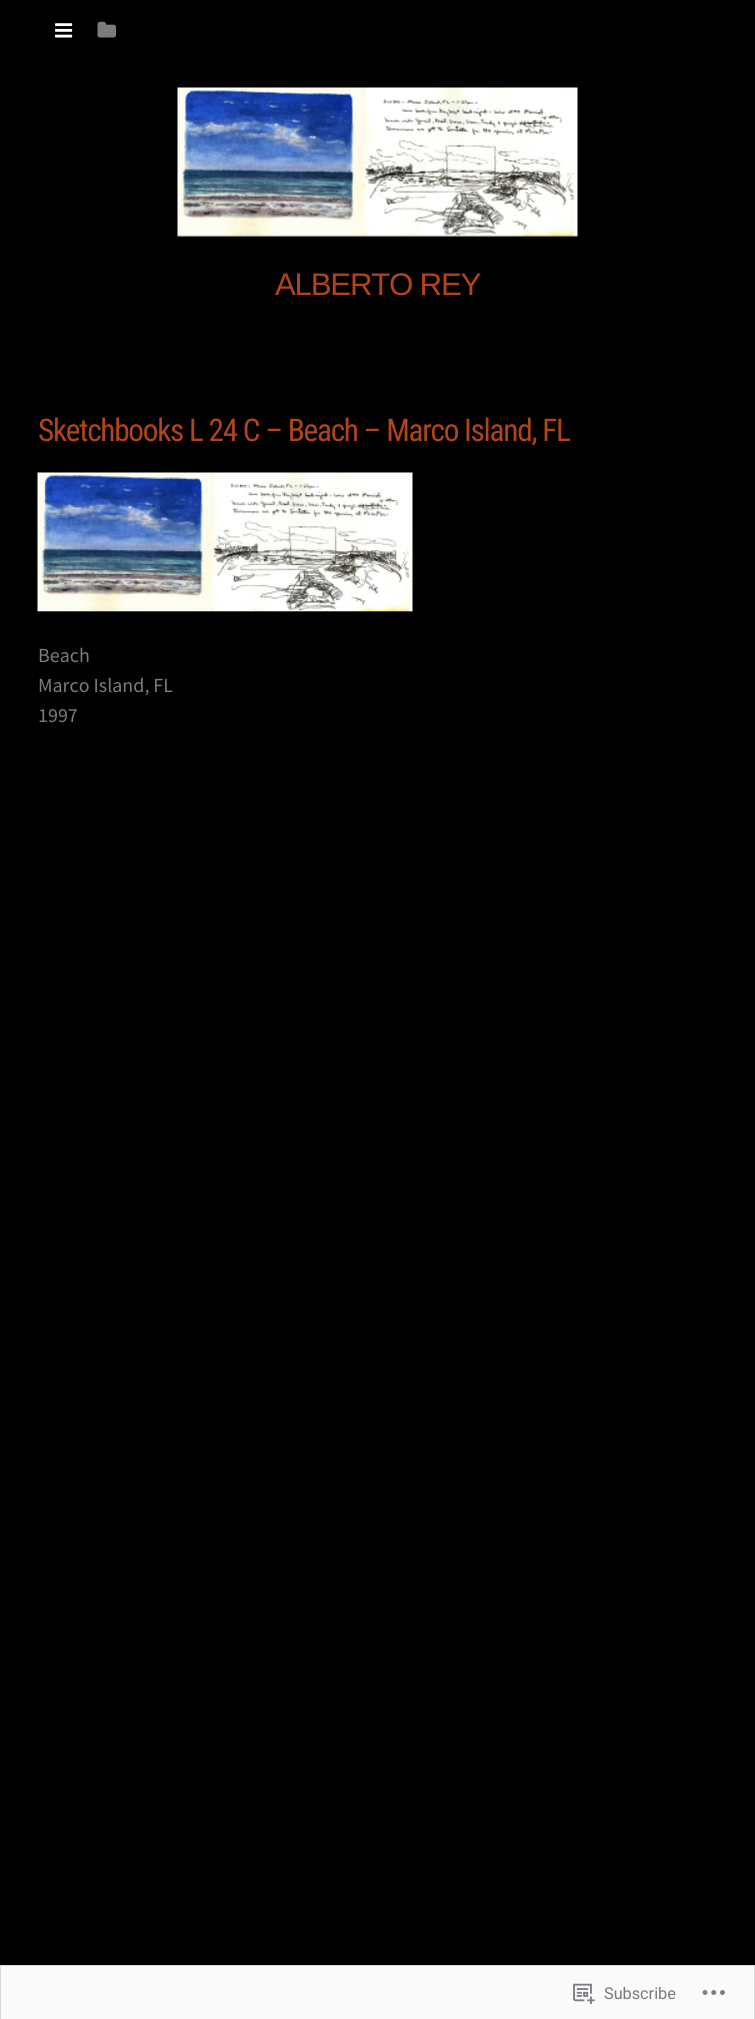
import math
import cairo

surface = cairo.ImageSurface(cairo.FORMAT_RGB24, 755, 2019)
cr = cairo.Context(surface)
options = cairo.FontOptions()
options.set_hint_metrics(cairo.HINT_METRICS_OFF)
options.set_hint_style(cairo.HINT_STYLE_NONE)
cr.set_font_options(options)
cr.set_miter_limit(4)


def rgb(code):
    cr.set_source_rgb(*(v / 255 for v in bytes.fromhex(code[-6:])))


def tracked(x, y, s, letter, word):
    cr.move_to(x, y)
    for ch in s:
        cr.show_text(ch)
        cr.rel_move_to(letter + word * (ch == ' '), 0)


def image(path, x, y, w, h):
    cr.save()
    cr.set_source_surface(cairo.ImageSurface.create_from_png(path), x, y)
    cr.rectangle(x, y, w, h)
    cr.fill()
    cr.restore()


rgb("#000000")
cr.paint()
image("img/1.png", 55, 23, 18, 15)
image("img/2.png", 97, 21, 20, 17)
image("img/3.png", 177, 87, 401, 150)
image("img/4.png", 37, 472, 376, 140)
rgb("#fafafa")
cr.rectangle(0.5, 1965.5, 754, 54)
cr.fill_preserve()
rgb("#d8d8da")
cr.set_line_width(1)
cr.stroke()
image("img/5.png", 573, 1983, 22, 22)
image("img/6.png", 702, 1990, 23, 5)
cr.select_font_face("Liberation Sans")
cr.set_font_size(31.25)
rgb("#b14419")
tracked(275, 295, "ALBERTO REY", -1.25, 0)
cr.select_font_face("Roboto Condensed")
tracked(38, 441, "Sketchbooks L 24 C – Beach – Marco Island, FL", -1.25, 0)
cr.select_font_face("Source Sans Pro")
cr.set_font_size(20)
rgb("#7c7c7c")
for x, y, s in [
    (38, 662, "Beach"),
    (38, 692, "Marco Island, FL"),
    (38, 722, "1997"),
]:
    cr.move_to(x, y)
    cr.show_text(s)
cr.select_font_face("Roboto")
cr.set_font_size(16.25)
rgb("#767a7f")
cr.move_to(604, 1999)
cr.show_text("Subscribe")
surface.write_to_png("page.png")
